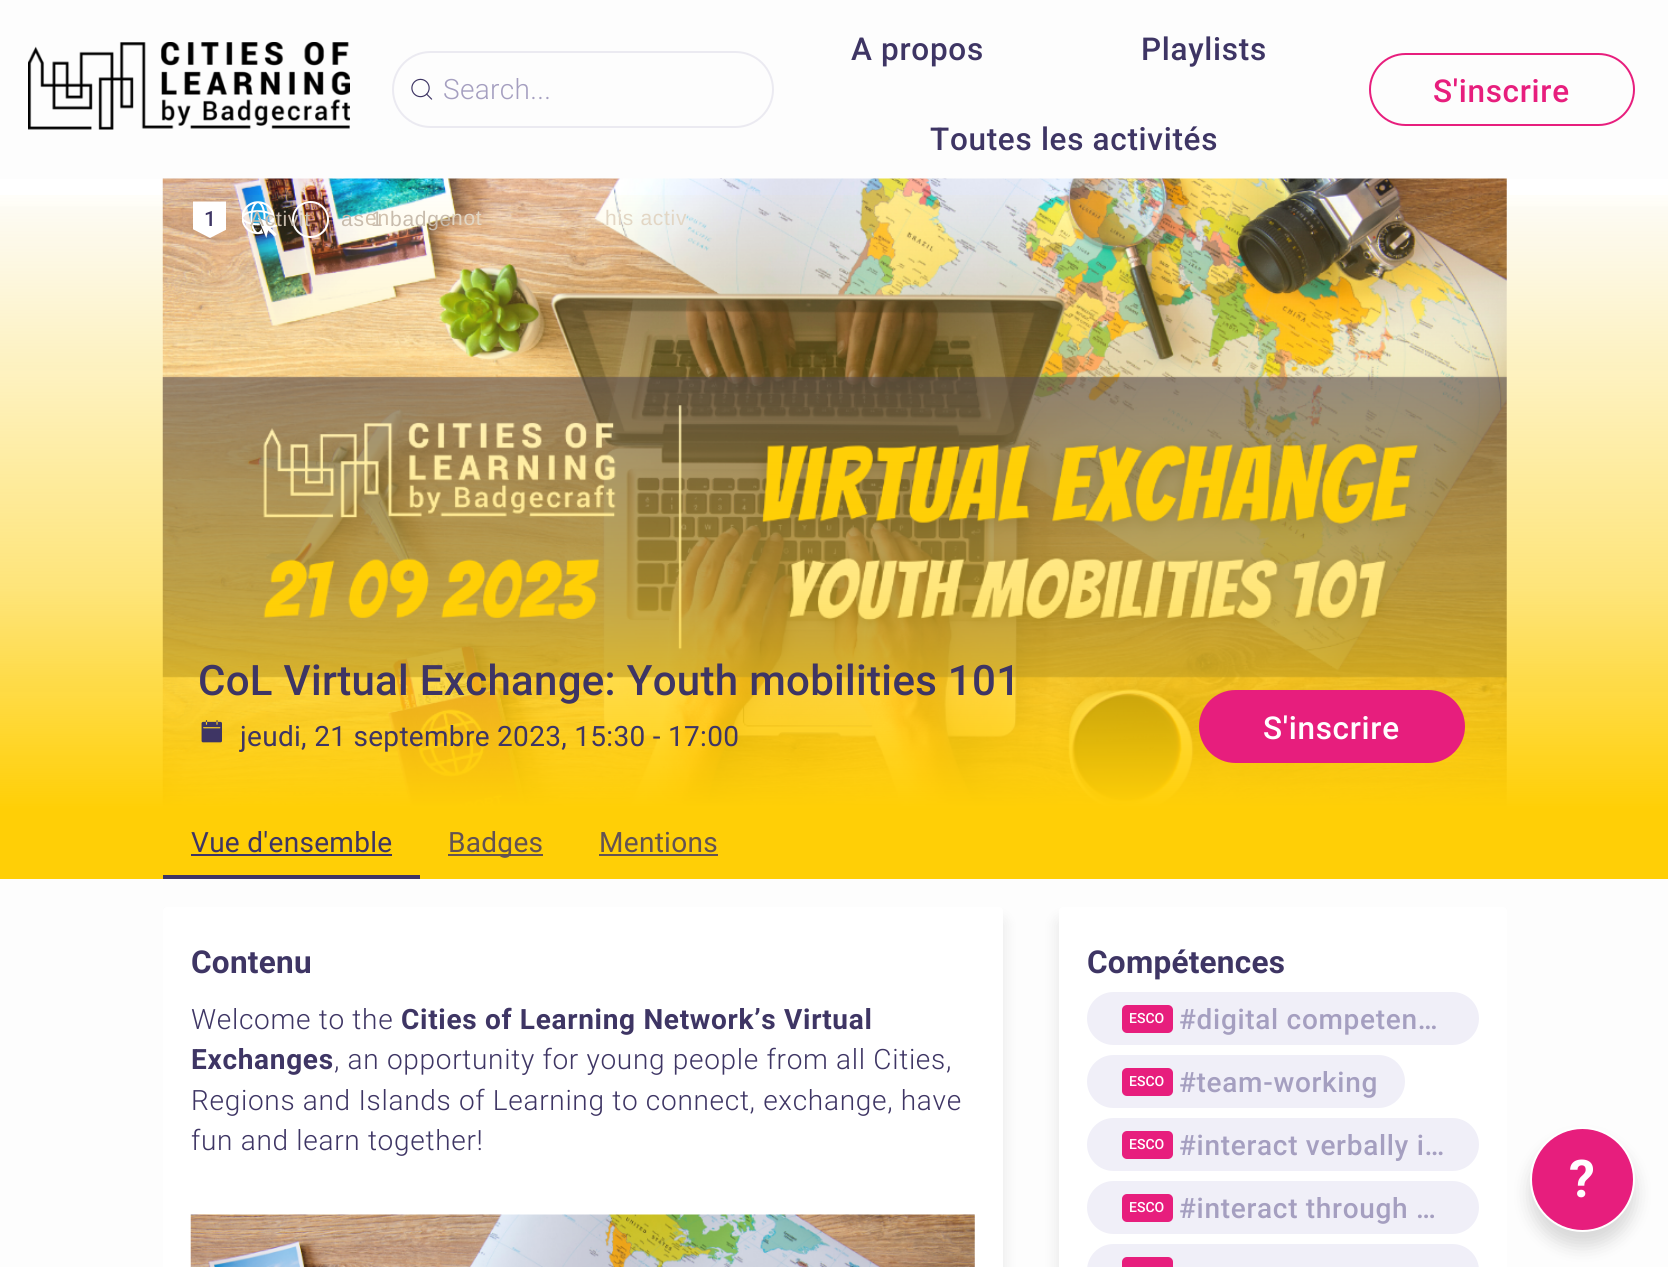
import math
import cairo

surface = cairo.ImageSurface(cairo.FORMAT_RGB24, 1668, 1267)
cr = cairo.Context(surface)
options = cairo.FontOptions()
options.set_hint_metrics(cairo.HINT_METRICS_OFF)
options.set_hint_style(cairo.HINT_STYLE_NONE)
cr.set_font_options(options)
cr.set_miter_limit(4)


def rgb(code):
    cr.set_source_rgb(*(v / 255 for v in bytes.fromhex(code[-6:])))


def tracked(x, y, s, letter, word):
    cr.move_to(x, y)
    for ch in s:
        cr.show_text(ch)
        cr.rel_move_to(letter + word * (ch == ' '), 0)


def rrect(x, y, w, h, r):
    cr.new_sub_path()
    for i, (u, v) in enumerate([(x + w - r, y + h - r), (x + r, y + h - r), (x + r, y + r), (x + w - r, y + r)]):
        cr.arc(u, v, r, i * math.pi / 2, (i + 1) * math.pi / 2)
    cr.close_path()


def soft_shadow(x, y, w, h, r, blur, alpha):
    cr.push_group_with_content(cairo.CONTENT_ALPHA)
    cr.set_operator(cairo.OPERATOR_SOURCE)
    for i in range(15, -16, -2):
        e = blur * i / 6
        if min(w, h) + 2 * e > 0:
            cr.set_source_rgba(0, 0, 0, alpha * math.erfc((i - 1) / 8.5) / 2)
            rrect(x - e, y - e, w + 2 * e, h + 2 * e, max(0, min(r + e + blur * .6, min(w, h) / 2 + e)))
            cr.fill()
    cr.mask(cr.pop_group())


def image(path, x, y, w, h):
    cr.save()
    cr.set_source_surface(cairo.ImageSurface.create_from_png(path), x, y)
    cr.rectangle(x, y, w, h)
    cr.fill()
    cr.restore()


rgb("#fdfdfd")
cr.paint()
cr.save()
cr.set_fill_rule(cairo.FILL_RULE_EVEN_ODD)
cr.new_path()
cr.move_to(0, 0)
cr.line_to(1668, 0)
cr.line_to(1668, 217)
cr.line_to(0, 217)
cr.close_path()
cr.move_to(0, 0)
cr.line_to(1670, 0)
cr.line_to(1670, 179)
cr.line_to(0, 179)
cr.close_path()
cr.clip()
rgb("#300672")
soft_shadow(0, 5, 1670, 179, 0, 10.5, 0.11)
cr.restore()
image("img/1.png", 28, 42, 322, 88)
rrect(393, 52, 380, 75, 37.5)
rgb("#ebeaf1")
cr.stroke()
image("img/2.png", 411, 78, 22, 22)
rrect(1370, 54, 264, 71, 35.5)
rgb("#e71e7d")
cr.stroke()
rgb("#ffffff")
cr.rectangle(0, 179, 1668, 27)
cr.fill()
image("img/3.png", 162, 178, 1345, 628)
gradient = cairo.LinearGradient(835, 178, 835, 809)
gradient.add_color_stop_rgba(0, 1, 0.812, 0.024, 0)
gradient.add_color_stop_rgba(0.65, 1, 0.812, 0.024, 0.53)
gradient.add_color_stop_rgba(1, 1, 0.812, 0.024, 1)
cr.set_source(gradient)
cr.rectangle(0, 195, 1668, 614)
cr.fill()
cr.save()
cr.rectangle(193, 201, 33, 37)
cr.clip()
rgb("#ffffff")
cr.new_path()
cr.move_to(192.5, 201.5)
cr.line_to(192.5, 229)
cr.line_to(210, 238)
cr.line_to(227.5, 229)
cr.line_to(227.5, 201.5)
cr.close_path()
cr.fill()
cr.restore()
cr.arc(310.5, 219.5, 17.5, 0, 2 * math.pi)
rgb("#ffffff")
cr.stroke()
image("img/4.png", 242, 201, 36, 37)
image("img/5.png", 201, 720, 21, 23)
rgb("#e71e7d")
rrect(1200, 691, 264, 71, 35.5)
cr.fill_preserve()
cr.stroke()
for x, y, w, h, color in [
    (0, 809, 1668, 70, "#ffcf06"),
    (163, 875, 257, 4, "#3e3564"),
    (191, 854, 201, 2, "#3e3564"),
    (448, 854, 95, 2, "#655451"),
    (599, 854, 119, 2, "#655451"),
]:
    rgb(color)
    cr.rectangle(x, y, w, h)
    cr.fill()
cr.save()
cr.rectangle(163, 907, 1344, 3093)
cr.clip()
rgb("#000000")
soft_shadow(159, 917, 847, 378, 7, 7, 0.07)
cr.restore()
rgb("#ffffff")
rrect(163, 907, 840, 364, 4)
cr.fill()
image("img/6.png", 190, 1214, 785, 53)
cr.save()
cr.rectangle(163, 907, 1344, 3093)
cr.clip()
rgb("#000000")
soft_shadow(1055, 917, 455, 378, 7, 7, 0.07)
cr.restore()
rrect(1059, 907, 448, 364, 4)
cr.fill()
rgb("#f0eff8")
rrect(1087, 992, 392, 53, 26.5)
cr.fill()
rgb("#e71e7d")
rrect(1122, 1005, 51, 28, 5)
cr.fill()
rgb("#f0eff8")
rrect(1087, 1055, 318, 53, 26.5)
cr.fill()
rgb("#e71e7d")
rrect(1122, 1068, 51, 28, 5)
cr.fill()
rgb("#f0eff8")
rrect(1087, 1118, 392, 53, 26.5)
cr.fill()
rgb("#e71e7d")
rrect(1122, 1131, 51, 28, 5)
cr.fill()
rgb("#f0eff8")
rrect(1087, 1181, 392, 53, 26.5)
cr.fill()
rgb("#e71e7d")
rrect(1122, 1194, 51, 28, 5)
cr.fill()
rgb("#f0eff8")
rrect(1087, 1244, 392, 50, 26.5)
cr.fill()
rgb("#e71e7d")
rrect(1122, 1257, 51, 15, 5)
cr.fill()
rgb("#000000")
soft_shadow(1530, 1141, 105, 105, 52.5, 9, 0.15)
rgb("#e71e7d")
cr.arc(1582.5, 1179.5, 51.5, 0, 2 * math.pi)
cr.fill_preserve()
rgb("#ffffff")
cr.stroke()
cr.select_font_face("Roboto Light")
cr.set_font_size(28)
rgb("#a59fc0")
tracked(443, 99, "Search...", 0.3, 0)
cr.select_font_face("Roboto Medium")
cr.set_font_size(31.5)
rgb("#3e3564")
for x, y, s in [
    (851, 60, "A propos"),
    (1141, 60, "Playlists"),
    (930, 150, "Toutes les activités"),
]:
    tracked(x, y, s, 0.7, 0)
rgb("#e71e7d")
tracked(1433, 102, "S'inscrire", 0.7, 0)
cr.set_font_size(21)
rgb("#3e3564")
tracked(204, 226, "1", 0.7, 0)
cr.select_font_face("Liberation Sans")
rgb("#c8bcad")
tracked(250, 226, "Activit", 0.7, 0)
tracked(341, 226, "as 1 badge", 0.7, 0)
rgb("#e2d6c4")
tracked(451, 225, "not", 0.7, 0)
tracked(605, 225, "his activ", 0.7, 0)
rgb("#d1c1ad")
tracked(365, 225, "en", 0.7, 0)
cr.select_font_face("Roboto Medium")
cr.set_font_size(42)
rgb("#3e3564")
tracked(198, 695, "CoL Virtual Exchange: Youth mobilities 101", 0.3, 0)
cr.select_font_face("Roboto")
cr.set_font_size(28)
tracked(240, 746, "jeudi, 21 septembre 2023, 15:30 - 17:00", 0.3, 0)
cr.select_font_face("Roboto Medium")
cr.set_font_size(31.5)
rgb("#ffffff")
tracked(1263, 739, "S'inscrire", 0.7, 0)
cr.select_font_face("Roboto")
cr.set_font_size(28)
rgb("#3e3564")
tracked(191, 852, "Vue d'ensemble", 0.3, 0)
rgb("#645352")
tracked(448, 852, "Badges", 0.3, 0)
tracked(599, 852, "Mentions", 0.3, 0)
cr.select_font_face("Roboto", cairo.FONT_SLANT_NORMAL, cairo.FONT_WEIGHT_BOLD)
cr.set_font_size(31.5)
rgb("#3e3564")
tracked(191, 973, "Contenu", 0.25, 0)
cr.select_font_face("Roboto Light")
cr.set_font_size(28)
tracked(191, 1029, "Welcome to the", 0.7, 0)
cr.select_font_face("Roboto", cairo.FONT_SLANT_NORMAL, cairo.FONT_WEIGHT_BOLD)
tracked(401, 1029, "Cities of Learning Network’s Virtual", 0.7, 0)
tracked(191, 1069, "Exchanges", 0.7, 0)
cr.select_font_face("Roboto Light")
for x, y, s in [
    (334, 1069, ", an opportunity for young people from all Cities,"),
    (191, 1110, "Regions and Islands of Learning to connect, exchange, have"),
    (191, 1150, "fun and learn together!"),
]:
    tracked(x, y, s, 0.7, 0)
cr.select_font_face("Roboto", cairo.FONT_SLANT_NORMAL, cairo.FONT_WEIGHT_BOLD)
cr.set_font_size(31.5)
tracked(1087, 973, "Compétences", 0.25, 0)
cr.select_font_face("Roboto Medium")
cr.set_font_size(14)
rgb("#ffffff")
cr.move_to(1129, 1023)
cr.show_text("ESCO")
cr.save()
cr.rectangle(1180, 1005, 271, 31)
cr.clip()
cr.set_font_size(28)
rgb("#a59fc0")
tracked(1179, 1029, "#digital competen…", 0.7, 0)
cr.restore()
cr.move_to(1129, 1086)
cr.show_text("ESCO")
cr.save()
cr.rectangle(1180, 1068, 197, 31)
cr.clip()
cr.set_font_size(28)
rgb("#a59fc0")
tracked(1179, 1092, "#team-working", 0.7, 0)
cr.restore()
cr.move_to(1129, 1149)
cr.show_text("ESCO")
cr.save()
cr.rectangle(1180, 1131, 271, 31)
cr.clip()
cr.set_font_size(28)
rgb("#a59fc0")
tracked(1179, 1155, "#interact verbally i…", 0.7, 0)
cr.restore()
cr.move_to(1129, 1212)
cr.show_text("ESCO")
cr.save()
cr.rectangle(1180, 1194, 271, 31)
cr.clip()
cr.set_font_size(28)
rgb("#a59fc0")
tracked(1179, 1218, "#interact through …", 0.7, 0)
cr.restore()
cr.select_font_face("Roboto", cairo.FONT_SLANT_NORMAL, cairo.FONT_WEIGHT_BOLD)
cr.set_font_size(52)
cr.move_to(1569, 1197)
cr.show_text("?")
surface.write_to_png("page.png")
